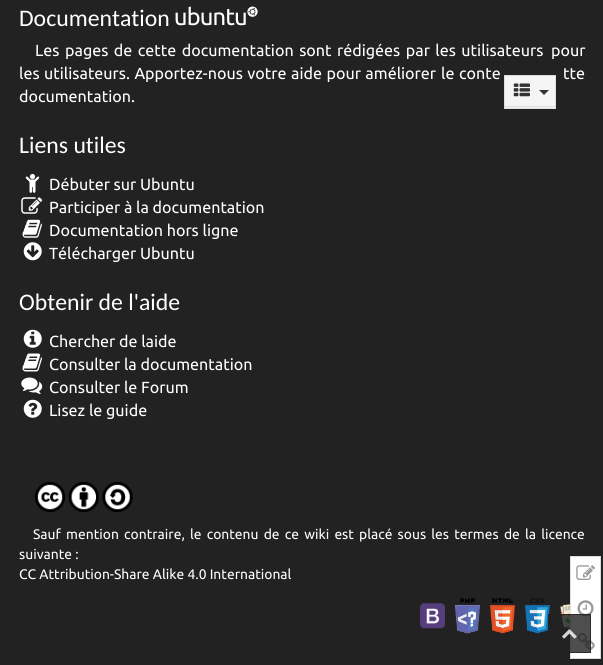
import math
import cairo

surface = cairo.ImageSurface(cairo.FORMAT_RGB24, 603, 665)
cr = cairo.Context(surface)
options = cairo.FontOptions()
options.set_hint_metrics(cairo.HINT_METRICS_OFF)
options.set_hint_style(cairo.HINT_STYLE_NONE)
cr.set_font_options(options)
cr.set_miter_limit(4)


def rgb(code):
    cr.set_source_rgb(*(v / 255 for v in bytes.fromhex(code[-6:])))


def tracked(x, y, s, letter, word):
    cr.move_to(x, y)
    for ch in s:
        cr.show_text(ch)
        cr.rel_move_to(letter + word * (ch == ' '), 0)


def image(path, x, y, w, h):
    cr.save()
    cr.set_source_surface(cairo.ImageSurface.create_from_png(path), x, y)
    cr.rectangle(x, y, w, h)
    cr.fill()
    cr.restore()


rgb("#222222")
cr.paint()
image("img/1.png", 175, 6, 83, 20)
image("img/2.png", 25, 173, 15, 20)
image("img/3.png", 21, 197, 22, 17)
image("img/4.png", 22, 219, 20, 19)
image("img/5.png", 23, 242, 19, 19)
image("img/6.png", 23, 329, 19, 19)
image("img/7.png", 22, 353, 20, 19)
image("img/8.png", 21, 377, 22, 17)
image("img/9.png", 23, 399, 19, 19)
image("img/10.png", 35, 482, 30, 30)
image("img/11.png", 68, 482, 31, 30)
image("img/12.png", 102, 482, 31, 30)
image("img/13.png", 420, 603, 25, 26)
image("img/14.png", 455, 598, 25, 36)
image("img/15.png", 490, 598, 25, 36)
image("img/16.png", 525, 598, 25, 36)
image("img/17.png", 560, 604, 10, 25)
cr.rectangle(504.5, 75.5, 51, 33)
rgb("#dddddd")
cr.set_line_width(1)
cr.stroke()
rgb("#f5f5f5")
cr.rectangle(505, 76, 50, 32)
cr.fill()
rgb("#dddddd")
cr.rectangle(505, 106, 50, 1)
cr.fill()
image("img/18.png", 513, 83, 17, 14)
rgb("#333333")
cr.new_path()
cr.move_to(539, 90)
cr.line_to(549, 90)
cr.line_to(544, 95)
cr.close_path()
cr.fill()
rgb("#ffffff")
cr.rectangle(570.5, 556.5, 30, 102)
cr.fill_preserve()
rgb("#dddddd")
cr.stroke()
image("img/19.png", 576, 565, 19, 15)
image("img/20.png", 577, 600, 17, 17)
image("img/21.png", 577, 632, 18, 18)
cr.set_source_rgba(0.133, 0.133, 0.133, 0.8)
cr.rectangle(548, 614, 43, 39)
cr.fill()
cr.rectangle(548.5, 614.5, 42, 38)
cr.stroke()
image("img/22.png", 562, 629, 15, 10)
cr.select_font_face("Carlito")
cr.set_font_size(23.75)
rgb("#ffffff")
cr.move_to(19, 26)
cr.show_text("Documentation")
cr.select_font_face("Ubuntu")
cr.set_font_size(16.1)
tracked(35, 56, "Les pages de cette documentation sont rédigées par les utilisateurs", 0, 1.75)
cr.move_to(551, 56)
cr.show_text("pour")
tracked(19, 79, "les utilisateurs. Apportez-nous votre aide pour améliorer", 0, 0.75)
tracked(441, 79, "le conte", 0, 1)
tracked(563, 79, "tte", 0, 1)
cr.move_to(19, 102)
cr.show_text("documentation.")
cr.select_font_face("Carlito")
cr.set_font_size(23.75)
cr.move_to(19, 153)
cr.show_text("Liens utiles")
cr.select_font_face("Ubuntu")
cr.set_font_size(16.1)
for x, y, s in [
    (49, 190, "Débuter sur Ubuntu"),
    (49, 213, "Participer à la documentation"),
    (49, 236, "Documentation hors ligne"),
    (49, 259, "Télécharger Ubuntu"),
]:
    cr.move_to(x, y)
    cr.show_text(s)
cr.select_font_face("Carlito")
cr.set_font_size(23.75)
cr.move_to(19, 310)
cr.show_text("Obtenir de l'aide")
cr.select_font_face("Ubuntu")
cr.set_font_size(16.1)
for x, y, s in [
    (49, 347, "Chercher de laide"),
    (49, 370, "Consulter la documentation"),
    (49, 393, "Consulter le Forum"),
    (49, 416, "Lisez le guide"),
]:
    cr.move_to(x, y)
    cr.show_text(s)
cr.set_font_size(13.85)
tracked(33, 539, "Sauf mention contraire, le contenu de ce wiki est placé sous les termes de la licence", 0, 2)
cr.move_to(19, 559)
cr.show_text("suivante :")
cr.move_to(19, 579)
cr.show_text("CC Attribution-Share Alike 4.0 International")
surface.write_to_png("page.png")
